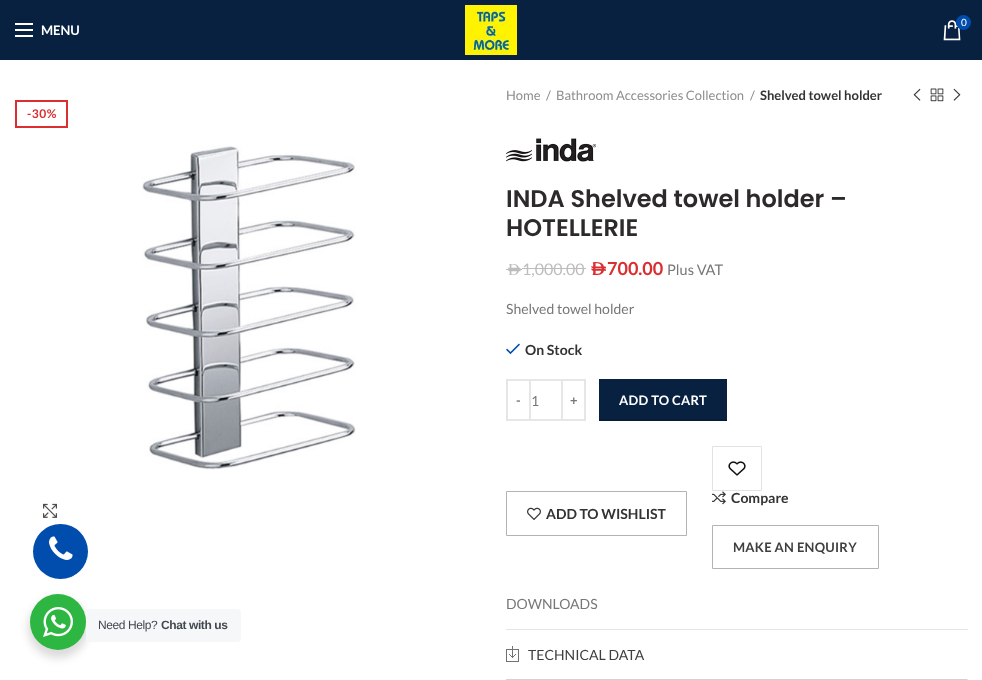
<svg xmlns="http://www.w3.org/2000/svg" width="982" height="680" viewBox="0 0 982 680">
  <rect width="100%" height="100%" fill="#fff"/>
  <path d="M0 0h982v60H0z" fill="#092141"/>
  <image x="465" y="5" width="52" height="50" href="img/1.png"/>
  <image x="943" y="20" width="18" height="21" href="img/2.png"/>
  <circle cx="963.5" cy="22.5" r="7.5" fill="#004dad"/>
  <path d="M15 29h18v2H15z" fill="#fff"/>
  <path d="M15 23h18v2H15z" fill="#fff"/>
  <path d="M15 35h18v2H15z" fill="#fff"/>
  <path d="M16 101h51v26H16z" fill="none" stroke="#da2e30" stroke-width="2"/>
  <image x="142" y="146" width="214" height="324" href="img/3.png"/>
  <image x="43" y="503" width="14" height="15" href="img/4.png"/>
  <image x="913" y="88" width="8" height="13" href="img/5.png"/>
  <image x="930" y="88" width="14" height="14" href="img/6.png"/>
  <image x="953" y="88" width="8" height="13" href="img/7.png"/>
  <image x="506" y="138" width="90" height="24" href="img/8.png"/>
  <path d="M506 269h16v1H506z" fill="#bdbdbd"/>
  <path d="M522 268h64v1H522z" fill="#bdbdbd"/>
  <image x="506" y="343" width="14" height="12" href="img/9.png"/>
  <path d="M507 380h23v40H507z" fill="none" stroke="#e6e6e6" stroke-width="2"/>
  <path d="M531 379h30v2H531z" fill="#e6e6e6"/>
  <path d="M531 419h30v2H531z" fill="#e6e6e6"/>
  <path d="M562 380h23v40H562z" fill="none" stroke="#e6e6e6" stroke-width="2"/>
  <path d="M599 379h128v40H599z" fill="#082141"/>
  <path d="M599 419h128v2H599z" fill="#071c37"/>
  <image x="728" y="461" width="18" height="15" href="img/10.png"/>
  <path d="M712.5 446.5h49v44H712.5z" fill="none" stroke="#e2e2e2"/>
  <image x="712" y="491" width="14" height="14" href="img/11.png"/>
  <path d="M506.5 491.5h180v44H506.5z" fill="none" stroke="#b4b4b4"/>
  <image x="527" y="507" width="14" height="13" href="img/12.png"/>
  <path d="M712.5 525.5h166v43H712.5z" fill="none" stroke="#b4b4b4"/>
  <path d="M506 629h462v1H506z" fill="#e6e6e6"/>
  <image x="506" y="646" width="13" height="16" href="img/13.png"/>
  <path d="M967 679h1v1H967z" fill="#e6e6e6"/>
  <path d="M506 679h461v1H506z" fill="#d2d2d2"/>
  <circle cx="60.5" cy="551.5" r="27.5" fill="#004dad"/>
  <image x="49" y="536" width="24" height="24" href="img/14.png"/>
  <rect x="28" y="598" width="60" height="60" rx="30" fill="#00000024" filter="blur(4px)"/>
  <circle cx="58" cy="622" r="28" fill="#2db742"/>
  <image x="43" y="607" width="30" height="30" href="img/15.png"/>
  <rect x="86" y="609" width="155" height="33" rx="4" fill="#f5f7f9"/>
  <text x="961" y="26" font-family="Lato" font-size="10" fill="#fff">0</text>
  <text x="41" y="35" font-family="Lato" font-size="13" font-weight="bold" fill="#fff">MENU</text>
  <text x="27" y="118" font-family="Lato" font-size="12" font-weight="bold" letter-spacing="0.5" fill="#da2e30">-30%</text>
  <g font-family="Lato" font-size="13" fill="#8e8e8e">
    <text x="506" y="100">Home</text>
    <text x="546" y="100">/</text>
    <text x="556" y="100">Bathroom Accessories Collection</text>
    <text x="750" y="100">/</text>
  </g>
  <text x="760" y="100" font-family="Lato" font-size="13" font-weight="bold" fill="#333">Shelved towel holder</text>
  <g font-family="Poppins" font-size="24" font-weight="600" fill="#2d2a2a">
    <text x="506" y="207">INDA Shelved towel holder –</text>
    <text x="506" y="236">HOTELLERIE</text>
  </g>
  <text x="506" y="275" font-family="'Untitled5'" font-size="16" fill="#bdbdbd">AED</text>
  <text x="522" y="275" font-family="Lato" font-size="16" fill="#bdbdbd">1,000.00</text>
  <text x="589" y="275" font-family="'Untitled5'" font-size="18" font-weight="bold" fill="#da2e30">AED</text>
  <text x="607" y="275" font-family="Lato" font-size="18" font-weight="bold" fill="#da2e30">700.00</text>
  <text x="667" y="275" font-family="Lato" font-size="14.5" fill="#777">Plus VAT</text>
  <text x="506" y="314" font-family="Lato" font-size="14" fill="#777">Shelved towel holder</text>
  <text x="525" y="355" font-family="Lato" font-size="14" font-weight="bold" fill="#333">On Stock</text>
  <text x="516" y="405" font-family="Lato" font-size="13" font-weight="bold" letter-spacing="0.25" fill="#777">-</text>
  <text x="531" y="406" font-family="Lato" font-size="14" fill="#777">1</text>
  <text x="570" y="405" font-family="Lato" font-size="13" font-weight="bold" letter-spacing="0.25" fill="#777">+</text>
  <text x="619" y="405" font-family="Lato" font-size="13" font-weight="bold" letter-spacing="0.25" fill="#fff">ADD TO CART</text>
  <g font-family="Lato" font-size="14" font-weight="bold" fill="#333">
    <text x="731" y="503">Compare</text>
    <text x="546" y="519">ADD TO WISHLIST</text>
  </g>
  <text x="733" y="552" font-family="Lato" font-size="13" font-weight="bold" letter-spacing="0.25" fill="#3f3f3f">MAKE AN ENQUIRY</text>
  <text x="506" y="609" font-family="Lato" font-size="14" fill="#777">DOWNLOADS</text>
  <text x="528" y="660" font-family="Lato" font-size="14" fill="#3f3f3f">TECHNICAL DATA</text>
  <text x="98" y="629" font-family="Liberation Sans" font-size="12" letter-spacing="-0.4" fill="#43474e">Need Help?</text>
  <text x="161" y="629" font-family="Liberation Sans" font-size="12" font-weight="bold" letter-spacing="-0.4" fill="#43474e">Chat with us</text>
</svg>
